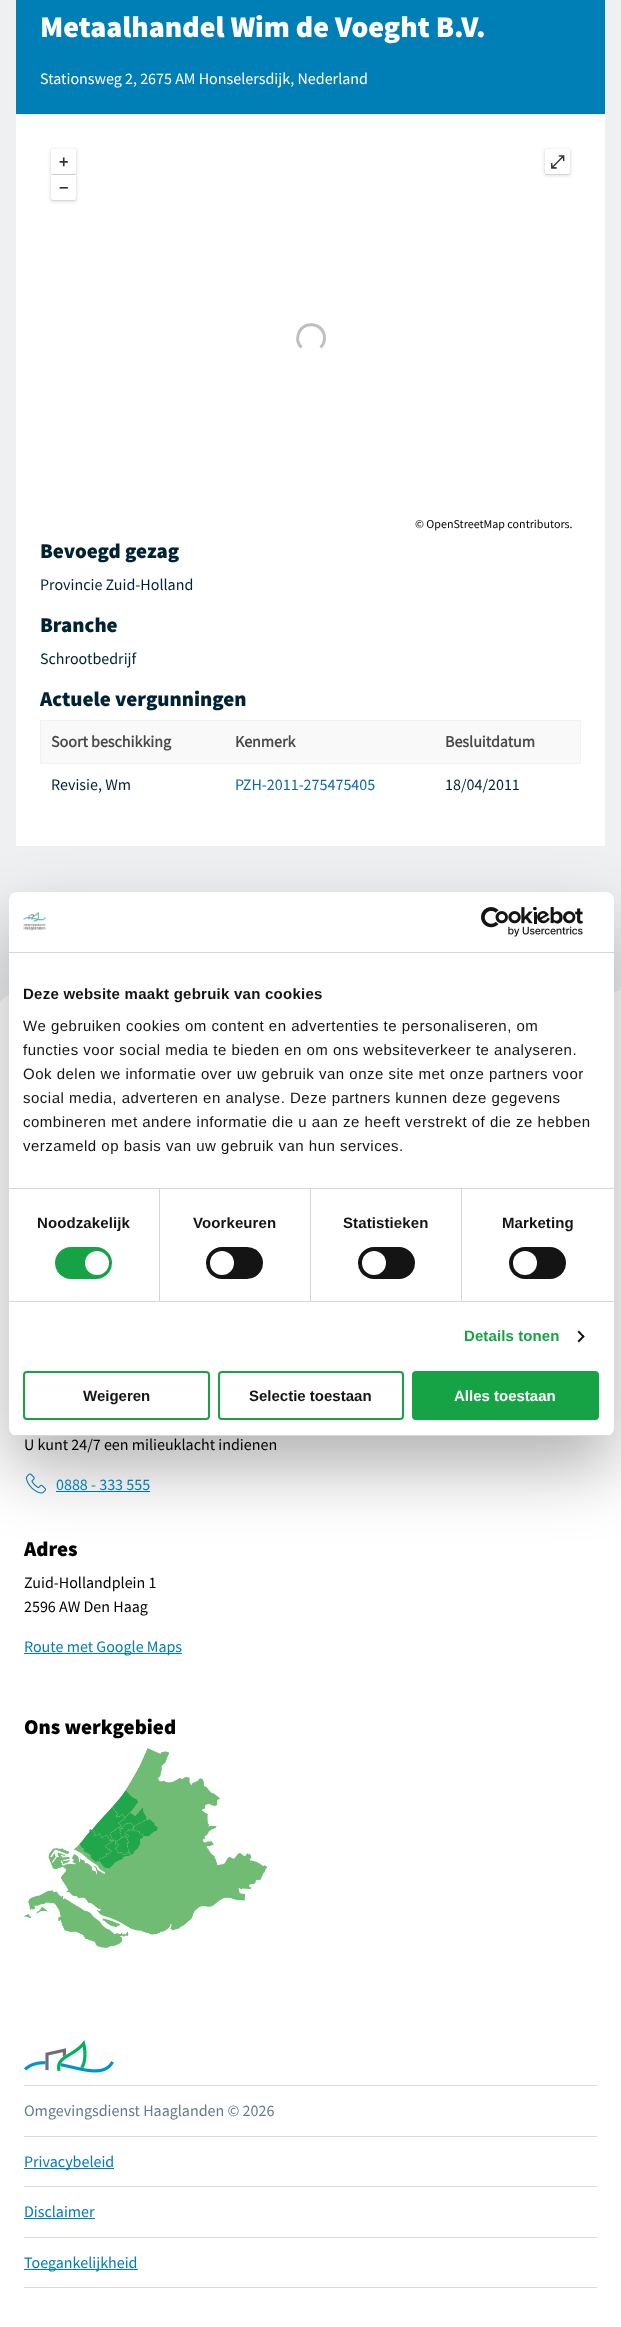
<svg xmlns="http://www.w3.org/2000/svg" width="621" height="2327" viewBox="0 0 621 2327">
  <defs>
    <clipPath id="clip1"><rect x="9" y="892" width="605" height="544" rx="8"/></clipPath>
  </defs>
  <rect width="100%" height="100%" fill="#eff0f2"/>
  <path d="M16 0h589v114H16z" fill="#007eb6"/>
  <path d="M16 114h589v732H16z" fill="#fff"/>
  <rect x="50" y="149" width="27" height="27" rx="3" fill="#42424229" filter="blur(1.5px)"/>
  <rect x="51" y="150" width="25" height="25" rx="2" fill="#42424214" filter="blur(0.5px)"/>
  <path d="M53 149H74C75 149 76 150 76 151V174H51V151C51 150 52 149 53 149Z" fill="#fff"/>
  <rect x="50" y="175" width="27" height="27" rx="3" fill="#42424229" filter="blur(1.5px)"/>
  <rect x="51" y="176" width="25" height="25" rx="2" fill="#42424214" filter="blur(0.5px)"/>
  <path d="M51 175H76V198C76 199 75 200 74 200H53C52 200 51 199 51 198Z" fill="#fff"/>
  <rect x="544" y="149" width="27" height="27" rx="3" fill="#42424229" filter="blur(1.5px)"/>
  <rect x="545" y="150" width="25" height="25" rx="2" fill="#42424214" filter="blur(0.5px)"/>
  <rect x="545" y="149" width="25" height="25" rx="2" fill="#fff"/>
  <path d="M301.5 347.5C298.5 344.5 297 339.5 298 335.5C301 319.5 324.5 322 324.5 338C324.5 341.5 323 345 320.5 347.5" fill="none" stroke="#bfbfbf" stroke-width="3"/>
  <path d="M41 721h539v42H41z" fill="#f9f9f9"/>
  <path d="M40 720h541v1H40z" fill="#f2f2f2"/>
  <path d="M580 720h1v44H580z" fill="#f2f2f2"/>
  <path d="M40 763h541v1H40z" fill="#f2f2f2"/>
  <path d="M40 720h1v44H40z" fill="#f2f2f2"/>
  <path d="M0 1008h621v1319H0z" fill="#fff"/>
  <path d="M282 971C112 937 23 978 0 1002V1008H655V966C611 1019 486 1011 282 971Z" fill="#fff"/>
  <image x="26" y="1473" width="20" height="21" href="img/3.png"/>
  <path d="M56 1491h94v1H56z" fill="#007eb6"/>
  <rect x="9" y="924" width="605" height="544" rx="8" fill="#0000004d" filter="blur(34px)"/>
  <rect x="9" y="892" width="605" height="544" rx="8" fill="#fff"/>
  <path d="M9 952h605v1H9z" fill="#d6d6d6"/>
  <image x="23" y="911" width="23" height="20" href="img/1.png"/>
  <image x="481" y="907" width="102" height="30" href="img/2.png"/>
  <path d="M9 1188h605v1H9z" fill="#d6d6d6"/>
  <path d="M9 1301h605v1H9z" fill="#d6d6d6"/>
  <path d="M159 1189h1v112H159z" fill="#d6d6d6"/>
  <rect x="55" y="1247" width="57" height="32" rx="16" fill="#16a345"/>
  <circle cx="97" cy="1263" r="12" fill="#fff"/>
  <path d="M310 1189h1v112H310z" fill="#d6d6d6"/>
  <rect x="206" y="1247" width="57" height="32" rx="16" fill="#141414"/>
  <circle cx="222" cy="1263" r="12" fill="#fff"/>
  <path d="M461 1189h1v112H461z" fill="#d6d6d6"/>
  <rect x="358" y="1247" width="57" height="32" rx="16" fill="#141414"/>
  <circle cx="374" cy="1263" r="12" fill="#fff"/>
  <rect x="509" y="1247" width="57" height="32" rx="16" fill="#141414"/>
  <circle cx="525" cy="1263" r="12" fill="#fff"/>
  <path d="M579 1330.5L584.5 1336.5L583.5 1338L577.5 1332Z" fill="#141414"/>
  <path d="M583.5 1335L584.5 1336.5L579 1342.5L577.5 1341Z" fill="#141414"/>
  <g clip-path="url(#clip1)">
    <path d="M9 1435h605v1H9z" fill="#d6d6d6"/>
  </g>
  <rect x="24" y="1372" width="185" height="47" rx="3" fill="none" stroke="#16a345" stroke-width="2"/>
  <rect x="219" y="1372" width="184" height="47" rx="3" fill="none" stroke="#16a345" stroke-width="2"/>
  <rect x="413" y="1372" width="185" height="47" rx="3" fill="#16a345" stroke="#16a345" stroke-width="2"/>
  <path d="M24 1653h158v1H24z" fill="#007eb6"/>
  <image x="24" y="1748" width="243" height="200" href="img/4.png"/>
  <path d="M24 2085h573v1H24z" fill="#d9d9d9"/>
  <image x="24" y="2040" width="90" height="33" href="img/5.png"/>
  <path d="M24 2136h573v1H24z" fill="#d9d9d9"/>
  <path d="M24 2186h573v1H24z" fill="#d9d9d9"/>
  <path d="M24 2168h90v1H24z" fill="#007eb6"/>
  <path d="M24 2237h573v1H24z" fill="#d9d9d9"/>
  <path d="M24 2218h71v1H24z" fill="#007eb6"/>
  <path d="M24 2287h573v1H24z" fill="#d9d9d9"/>
  <path d="M24 2269h114v1H24z" fill="#007eb6"/>
  <text x="40" y="37" font-family="Source Sans Pro" font-size="30" font-weight="900" fill="#fff">Metaalhandel Wim de Voeght B.V.</text>
  <text x="40" y="84" font-family="Source Sans Pro" font-size="16" fill="#fff">Stationsweg 2, 2675 AM Honselersdijk, Nederland</text>
  <g font-family="Source Sans Pro" font-size="18" font-weight="bold" fill="#333">
    <text x="59" y="168">+</text>
    <text x="59" y="194">−</text>
  </g>
  <text x="550" y="168" font-family="FreeSerif" font-size="18" font-weight="bold" fill="#333">⤢</text>
  <text x="415" y="528" font-family="Source Sans Pro" font-size="12" fill="#000">© OpenStreetMap contributors.</text>
  <text x="40" y="558" font-family="Source Sans Pro" font-size="21" font-weight="900" fill="#002333">Bevoegd gezag</text>
  <text x="40" y="590" font-family="Source Sans Pro" font-size="16" fill="#002333">Provincie Zuid-Holland</text>
  <text x="40" y="632" font-family="Source Sans Pro" font-size="21" font-weight="900" fill="#002333">Branche</text>
  <text x="40" y="664" font-family="Source Sans Pro" font-size="16" fill="#002333">Schrootbedrijf</text>
  <text x="40" y="706" font-family="Source Sans Pro" font-size="21" font-weight="900" fill="#002333">Actuele vergunningen</text>
  <g font-family="Source Sans Pro" font-size="16" font-weight="bold" fill="#48494b">
    <text x="51" y="747">Soort beschikking</text>
    <text x="235" y="747">Kenmerk</text>
    <text x="445" y="747">Besluitdatum</text>
  </g>
  <text x="51" y="790" font-family="Source Sans Pro" font-size="16" fill="#002333">Revisie, Wm</text>
  <text x="235" y="790" font-family="Source Sans Pro" font-size="16" fill="#0d67a9">PZH-2011-275475405</text>
  <text x="445" y="790" font-family="Source Sans Pro" font-size="16" fill="#002333">18/04/2011</text>
  <text x="23" y="999" font-family="Liberation Sans" font-size="15" font-weight="bold" letter-spacing="0.25" fill="#141414">Deze website maakt gebruik van cookies</text>
  <g font-family="Liberation Sans" font-size="15" letter-spacing="0.5" fill="#141414">
    <text x="23" y="1031">We gebruiken cookies om content en advertenties te personaliseren, om</text>
    <text x="23" y="1055">functies voor social media te bieden en om ons websiteverkeer te analyseren.</text>
    <text x="23" y="1079">Ook delen we informatie over uw gebruik van onze site met onze partners voor</text>
    <text x="23" y="1103">social media, adverteren en analyse. Deze partners kunnen deze gegevens</text>
    <text x="23" y="1127">combineren met andere informatie die u aan ze heeft verstrekt of die ze hebben</text>
    <text x="23" y="1151">verzameld op basis van uw gebruik van hun services.</text>
  </g>
  <g font-family="Liberation Sans" font-size="15" font-weight="bold" letter-spacing="0.1" fill="#141414">
    <text x="37" y="1228">Noodzakelijk</text>
    <text x="193" y="1228">Voorkeuren</text>
    <text x="343" y="1228">Statistieken</text>
    <text x="502" y="1228">Marketing</text>
  </g>
  <text x="464" y="1341" font-family="Liberation Sans" font-size="15" font-weight="bold" letter-spacing="0.1" fill="#16a345">Details tonen</text>
  <g font-family="Liberation Sans" font-size="15" font-weight="bold" fill="#141414">
    <text x="83" y="1401">Weigeren</text>
    <text x="249" y="1401">Selectie toestaan</text>
  </g>
  <text x="454" y="1401" font-family="Liberation Sans" font-size="15" font-weight="bold" fill="#fff">Alles toestaan</text>
  <text x="24" y="1450" font-family="Source Sans Pro" font-size="16" fill="#000">U kunt 24/7 een milieuklacht indienen</text>
  <text x="56" y="1490" font-family="Source Sans Pro" font-size="16" fill="#007eb6">0888 - 333 555</text>
  <text x="24" y="1556" font-family="Source Sans Pro" font-size="21" font-weight="900" fill="#000">Adres</text>
  <g font-family="Source Sans Pro" font-size="16" fill="#000">
    <text x="24" y="1588">Zuid-Hollandplein 1</text>
    <text x="24" y="1612">2596 AW Den Haag</text>
  </g>
  <text x="24" y="1652" font-family="Source Sans Pro" font-size="16" fill="#007eb6">Route met Google Maps</text>
  <text x="24" y="1734" font-family="Source Sans Pro" font-size="21" font-weight="900" fill="#000">Ons werkgebied</text>
  <text x="24" y="2116" font-family="Source Sans Pro" font-size="16" fill="#667b85">Omgevingsdienst Haaglanden © 2026</text>
  <g font-family="Source Sans Pro" font-size="16" fill="#007eb6">
    <text x="24" y="2167">Privacybeleid</text>
    <text x="24" y="2217">Disclaimer</text>
    <text x="24" y="2268">Toegankelijkheid</text>
  </g>
</svg>
